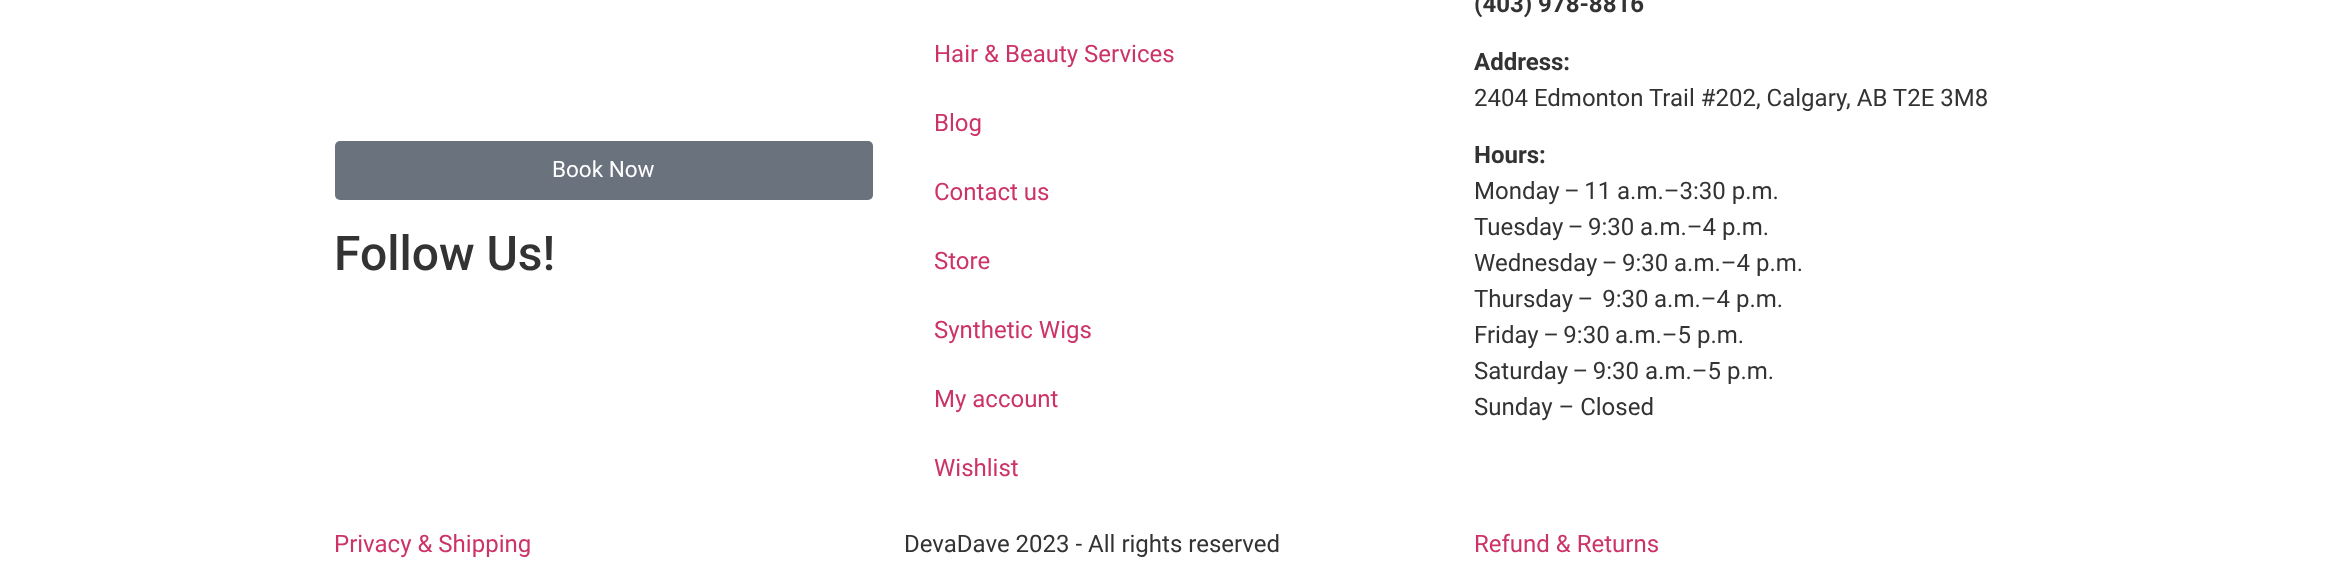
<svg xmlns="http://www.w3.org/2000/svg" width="2347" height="570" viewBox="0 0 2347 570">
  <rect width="100%" height="100%" fill="#fff"/>
  <rect x="335" y="141" width="538" height="59" rx="5" fill="#69727d"/>
  <text x="552" y="177" font-family="Roboto" font-size="22.5" fill="#fff">Book Now</text>
  <text x="334" y="270" font-family="Roboto" font-size="48" font-weight="500" fill="#333">Follow Us!</text>
  <g font-family="Roboto" font-size="24" fill="#c36">
    <text x="934" y="62">Hair &amp; Beauty Services</text>
    <text x="934" y="131">Blog</text>
    <text x="934" y="200">Contact us</text>
    <text x="934" y="269">Store</text>
    <text x="934" y="338">Synthetic Wigs</text>
    <text x="934" y="407">My account</text>
    <text x="934" y="476">Wishlist</text>
  </g>
  <g font-family="Roboto" font-size="24" font-weight="bold" fill="#333">
    <text x="1474" y="12">(403) 978-8816</text>
    <text x="1474" y="70">Address:</text>
  </g>
  <text x="1474" y="106" font-family="Roboto" font-size="24" fill="#333">2404 Edmonton Trail #202, Calgary, AB T2E 3M8</text>
  <text x="1474" y="163" font-family="Roboto" font-size="24" font-weight="bold" fill="#333">Hours:</text>
  <g font-family="Roboto" font-size="24" fill="#333">
    <text x="1474" y="199" word-spacing="-1.5">Monday – 11</text>
    <text x="1617" y="199">a.m.–3:30 p.m.</text>
    <text x="1474" y="235" word-spacing="-1.5">Tuesday – 9:30</text>
    <text x="1640" y="235">a.m.–4 p.m.</text>
    <text x="1474" y="271" word-spacing="-1.5">Wednesday – 9:30</text>
    <text x="1674" y="271">a.m.–4 p.m.</text>
    <text x="1474" y="307" word-spacing="-1.5" xml:space="preserve">Thursday –  9:30</text>
    <text x="1654" y="307">a.m.–4 p.m.</text>
    <text x="1474" y="343" word-spacing="-1.5">Friday – 9:30</text>
    <text x="1615" y="343">a.m.–5 p.m.</text>
    <text x="1474" y="379" word-spacing="-1.5">Saturday – 9:30</text>
    <text x="1645" y="379">a.m.–5 p.m.</text>
    <text x="1474" y="415">Sunday – Closed</text>
  </g>
  <text x="334" y="552" font-family="Roboto" font-size="24" fill="#c36">Privacy &amp; Shipping</text>
  <text x="904" y="552" font-family="Roboto" font-size="24" fill="#333">DevaDave 2023 - All rights reserved</text>
  <text x="1474" y="552" font-family="Roboto" font-size="24" fill="#c36">Refund &amp; Returns</text>
</svg>
